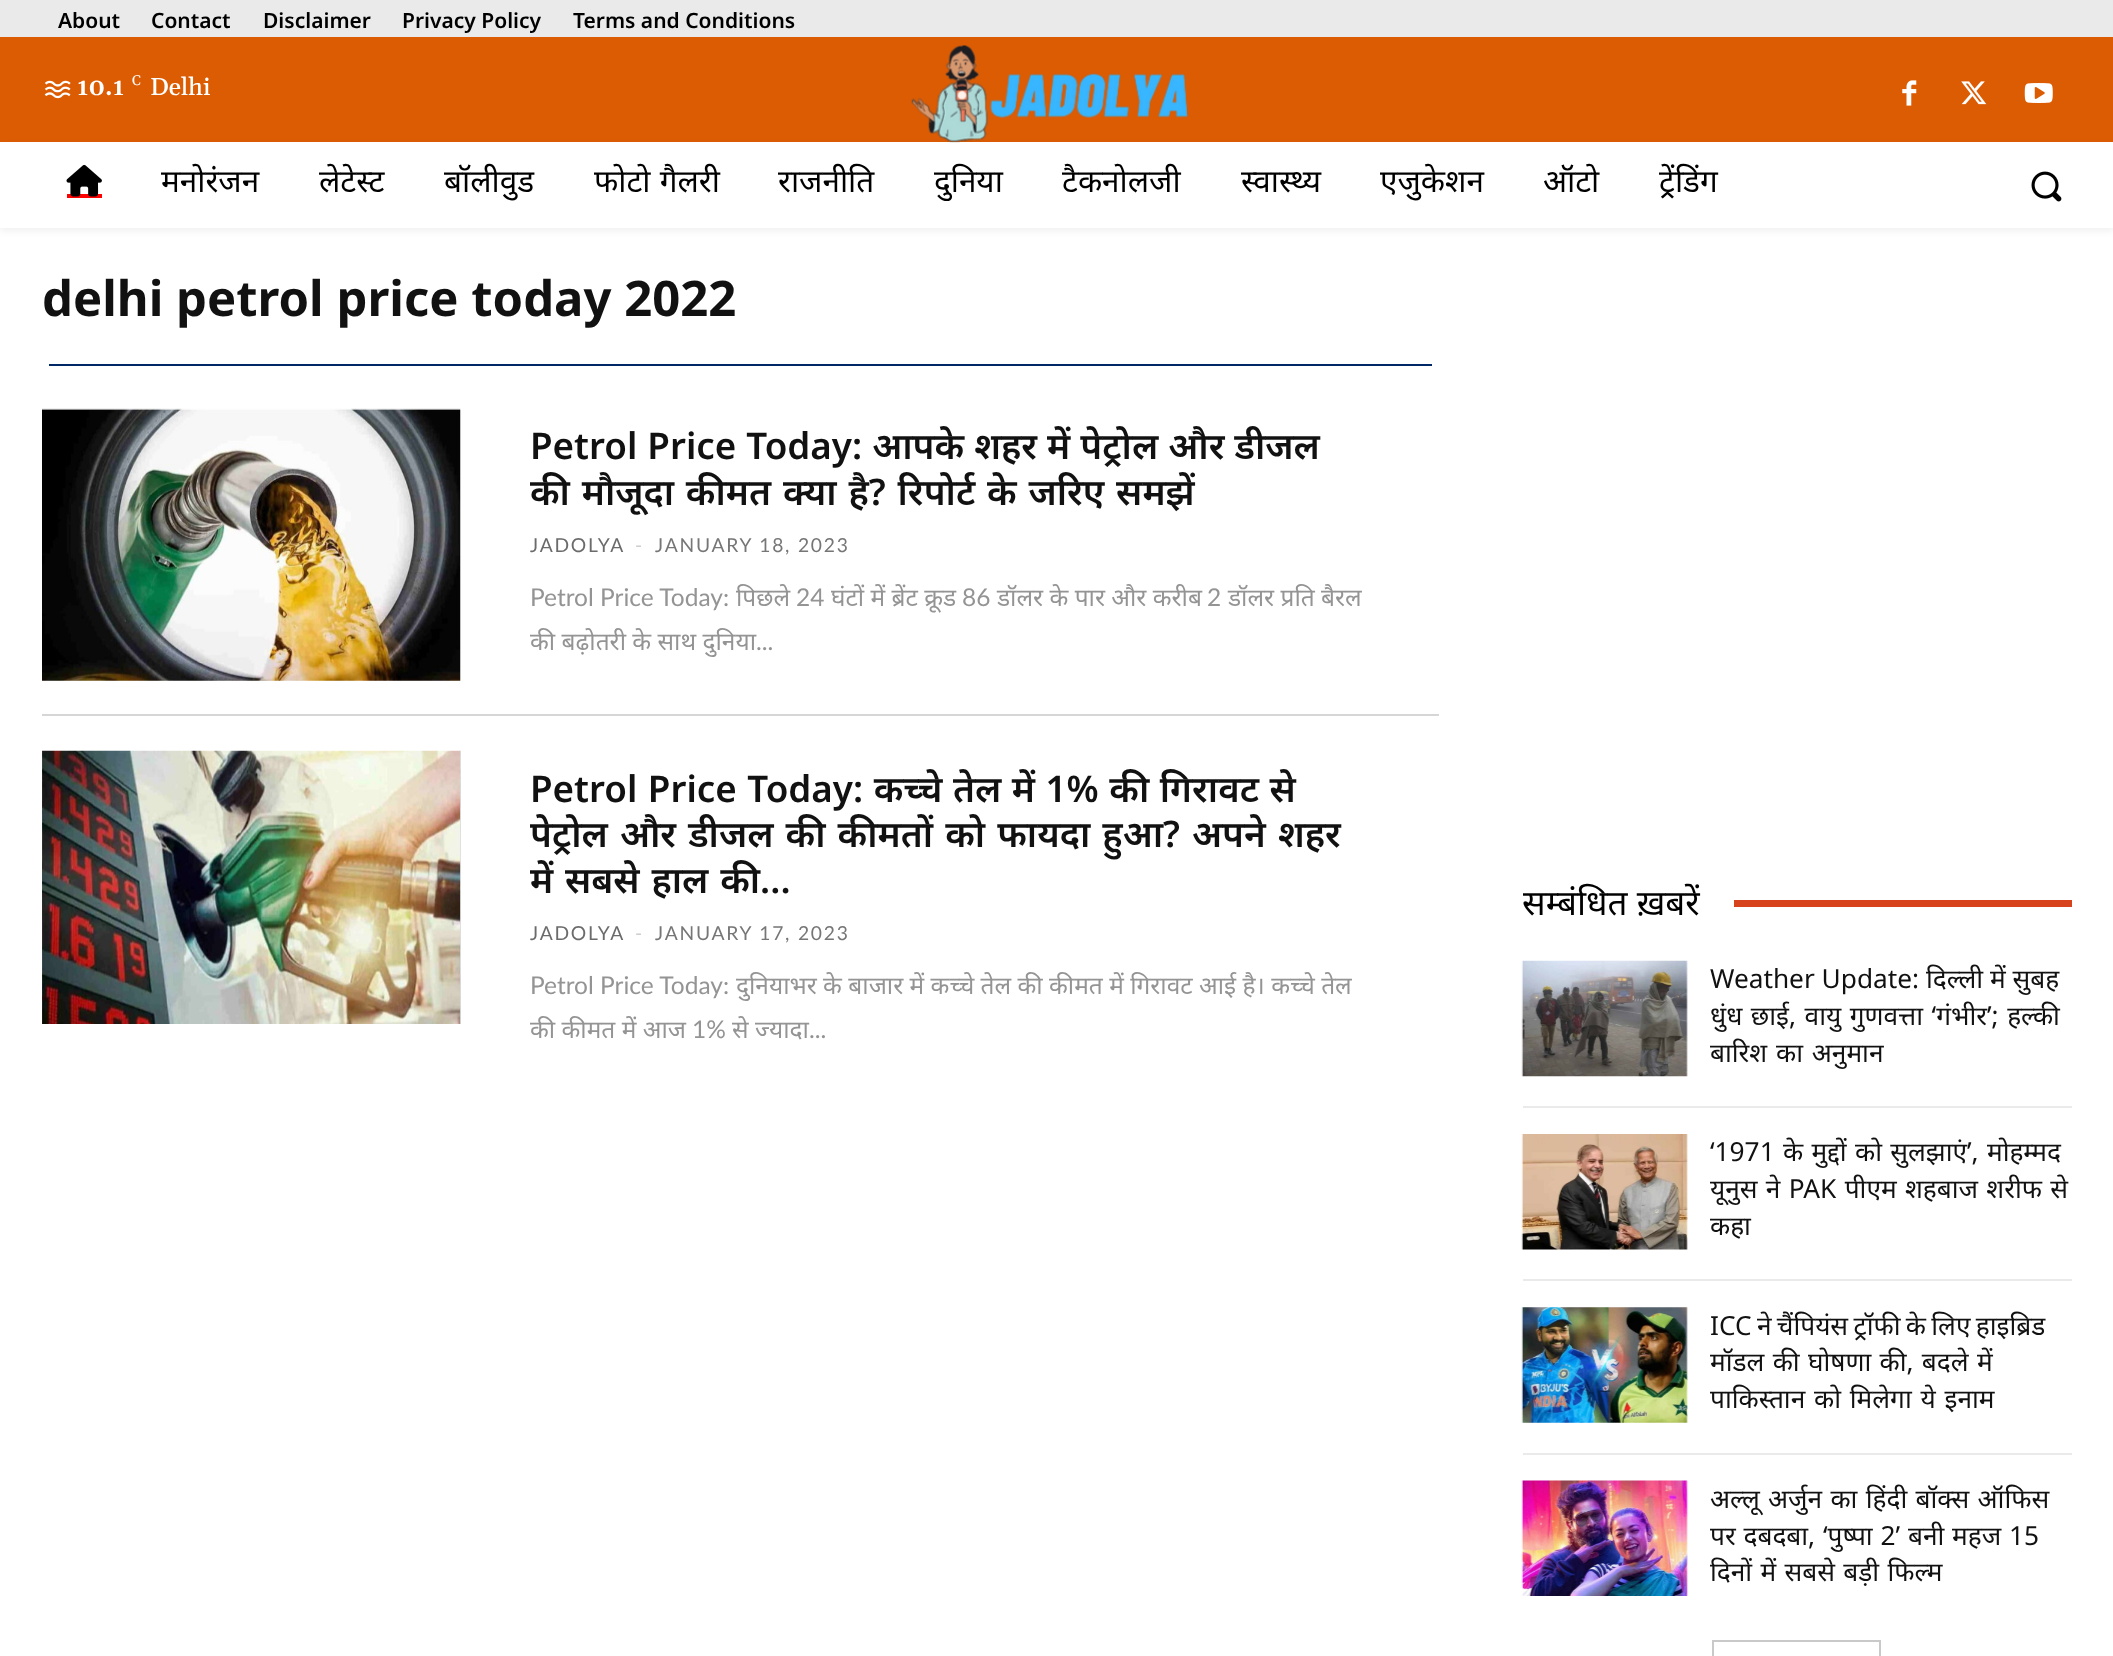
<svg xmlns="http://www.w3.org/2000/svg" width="2113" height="1656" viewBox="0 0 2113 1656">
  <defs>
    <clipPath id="clip1"><path d="M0 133H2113V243H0ZM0 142H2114V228H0Z" clip-rule="evenodd"/></clipPath>
    <clipPath id="clip2"><path d="M1523 879h549v50H1523z"/></clipPath>
  </defs>
  <rect width="100%" height="100%" fill="#fff"/>
  <path d="M0 0h2113v37H0z" fill="#eaeaea"/>
  <path d="M0 37h2113v105H0z" fill="#dc5c04"/>
  <image x="44" y="80" width="27" height="19" href="img/1.png"/>
  <image x="911" y="45" width="277" height="98" href="img/2.png"/>
  <image x="1902" y="80" width="15" height="26" href="img/3.png"/>
  <image x="1961" y="81" width="26" height="24" href="img/4.png"/>
  <image x="2024" y="83" width="29" height="20" href="img/5.png"/>
  <g clip-path="url(#clip1)">
    <path d="M0 145h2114v86H0z" fill="#0000000f" filter="blur(3.5px)"/>
  </g>
  <path d="M67 194h35v4H67z" fill="#f00"/>
  <image x="66" y="164" width="36" height="33" href="img/6.png"/>
  <image x="2031" y="171" width="31" height="31" href="img/7.png"/>
  <path d="M49 364h1383v2H49z" fill="#002866"/>
  <image x="42" y="408" width="419" height="273" href="img/8.png"/>
  <path d="M42 714h1397v2H42z" fill="#d6d6d6"/>
  <image x="42" y="750" width="419" height="274" href="img/9.png"/>
  <path d="M1734 900h338v7H1734z" fill="#d6431d"/>
  <image x="1521" y="960" width="167" height="117" href="img/10.png"/>
  <path d="M1523 1106h549v2H1523z" fill="#eaeaea"/>
  <image x="1521" y="1134" width="167" height="116" href="img/11.png"/>
  <path d="M1523 1279h549v2H1523z" fill="#eaeaea"/>
  <image x="1521" y="1307" width="167" height="116" href="img/12.png"/>
  <path d="M1523 1453h549v2H1523z" fill="#eaeaea"/>
  <image x="1521" y="1480" width="167" height="116" href="img/13.png"/>
  <path d="M1713 1641h167v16H1713z" fill="none" stroke="#c9c9c9" stroke-width="2"/>
  <g font-family="Noto Sans" font-size="21" font-weight="600" fill="#000">
    <text x="58" y="28">About</text>
    <text x="151" y="28">Contact</text>
    <text x="263" y="28">Disclaimer</text>
    <text x="402" y="28">Privacy Policy</text>
    <text x="573" y="28">Terms and Conditions</text>
  </g>
  <text x="77" y="95" font-family="Gelasio" font-size="24.5" font-weight="600" fill="#fff">10.1</text>
  <text x="132" y="85" font-family="Gelasio" font-size="14" fill="#fff">C</text>
  <text x="150" y="95" font-family="Gelasio" font-size="24.5" font-weight="500" fill="#fff">Delhi</text>
  <g font-family="Noto Sans" font-size="31.5" fill="#000">
    <text x="161" y="192">मनोरंजन</text>
    <text x="319" y="192">लेटेस्ट</text>
    <text x="444" y="192">बॉलीवुड</text>
    <text x="594" y="192" word-spacing="1">फोटो गैलरी</text>
    <text x="778" y="192">राजनीति</text>
    <text x="934" y="192">दुनिया</text>
    <text x="1062" y="192">टैकनोलजी</text>
    <text x="1241" y="192">स्वास्थ्य</text>
    <text x="1380" y="192">एजुकेशन</text>
    <text x="1543" y="192">ऑटो</text>
    <text x="1659" y="192">ट्रेंडिंग</text>
  </g>
  <text x="42" y="316" font-family="Noto Sans" font-size="49" font-weight="bold" fill="#111">delhi petrol price today 2022</text>
  <g font-family="Noto Sans" font-size="36.75" font-weight="600" fill="#111">
    <text x="530" y="459" word-spacing="0.5">Petrol Price Today: आपके शहर में पेट्रोल और डीजल</text>
    <text x="530" y="505" word-spacing="2.25">की मौजूदा कीमत क्या है? रिपोर्ट के जरिए समझें</text>
  </g>
  <text x="530" y="552" font-family="Lato" font-size="19.25" letter-spacing="1.75" fill="#6b6b6b">JADOLYA</text>
  <text x="635" y="552" font-family="Lato" font-size="19.25" letter-spacing="1.75" fill="#ccc">-</text>
  <text x="655" y="552" font-family="Lato" font-size="19.25" letter-spacing="1.75" fill="#767676">JANUARY 18, 2023</text>
  <text x="530" y="606" font-family="Lato" font-size="24.5" fill="#949494">Petrol Price Today:</text>
  <text x="736" y="606" font-family="Noto Sans" font-size="24.5" fill="#949494">पिछले</text>
  <text x="796" y="606" font-family="Lato" font-size="24.5" fill="#949494">24</text>
  <text x="831" y="606" font-family="Noto Sans" font-size="24.5" fill="#949494">घंटों में ब्रेंट क्रूड</text>
  <text x="962" y="606" font-family="Lato" font-size="24.5" fill="#949494">86</text>
  <text x="997" y="606" font-family="Noto Sans" font-size="24.5" fill="#949494">डॉलर के पार और करीब</text>
  <text x="1207" y="606" font-family="Lato" font-size="24.5" fill="#949494">2</text>
  <g font-family="Noto Sans" font-size="24.5" fill="#949494">
    <text x="1228" y="606">डॉलर प्रति बैरल</text>
    <text x="530" y="650">की बढ़ोतरी के साथ दुनिया</text>
  </g>
  <text x="756" y="650" font-family="Lato" font-size="24.5" fill="#949494">...</text>
  <g font-family="Noto Sans" font-size="36.75" font-weight="600" fill="#111">
    <text x="530" y="802" word-spacing="1">Petrol Price Today: कच्चे तेल में 1% की गिरावट से</text>
    <text x="530" y="847" word-spacing="2.5">पेट्रोल और डीजल की कीमतों को फायदा हुआ? अपने शहर</text>
    <text x="530" y="893" word-spacing="2.25">में सबसे हाल की...</text>
  </g>
  <text x="530" y="940" font-family="Lato" font-size="19.25" letter-spacing="1.75" fill="#6b6b6b">JADOLYA</text>
  <text x="635" y="940" font-family="Lato" font-size="19.25" letter-spacing="1.75" fill="#ccc">-</text>
  <text x="655" y="940" font-family="Lato" font-size="19.25" letter-spacing="1.75" fill="#767676">JANUARY 17, 2023</text>
  <text x="530" y="994" font-family="Lato" font-size="24.5" fill="#949494">Petrol Price Today:</text>
  <g font-family="Noto Sans" font-size="24.5" fill="#949494">
    <text x="736" y="994">दुनियाभर के बाजार में कच्चे तेल की कीमत में गिरावट आई है। कच्चे तेल</text>
    <text x="530" y="1038">की कीमत में आज</text>
  </g>
  <text x="692" y="1038" font-family="Lato" font-size="24.5" fill="#949494">1%</text>
  <text x="732" y="1038" font-family="Noto Sans" font-size="24.5" fill="#949494">से ज्यादा</text>
  <text x="809" y="1038" font-family="Lato" font-size="24.5" fill="#949494">...</text>
  <g clip-path="url(#clip2)">
    <text x="1522" y="915" font-family="Noto Sans" font-size="35" fill="#000">सम्बंधित ख़बरें</text>
  </g>
  <g font-family="Noto Sans" font-size="26.25" fill="#111">
    <text x="1710" y="988">Weather Update: दिल्ली में सुबह</text>
    <text x="1710" y="1025" word-spacing="1.75">धुंध छाई, वायु गुणवत्ता ‘गंभीर’; हल्की</text>
    <text x="1710" y="1062" word-spacing="2">बारिश का अनुमान</text>
    <text x="1710" y="1161" word-spacing="1.5">‘1971 के मुद्दों को सुलझाएं’, मोहम्मद</text>
    <text x="1710" y="1198" word-spacing="1.5">यूनुस ने PAK पीएम शहबाज शरीफ से</text>
    <text x="1710" y="1235">कहा</text>
    <text x="1710" y="1335" word-spacing="-1.5">ICC ने चैंपियंस ट्रॉफी के लिए हाइब्रिड</text>
    <text x="1710" y="1371" word-spacing="1.5">मॉडल की घोषणा की, बदले में</text>
    <text x="1710" y="1408" word-spacing="2">पाकिस्तान को मिलेगा ये इनाम</text>
    <text x="1710" y="1508" word-spacing="1.5">अल्लू अर्जुन का हिंदी बॉक्स ऑफिस</text>
    <text x="1710" y="1545" word-spacing="1">पर दबदबा, ‘पुष्पा 2’ बनी महज 15</text>
    <text x="1710" y="1581" word-spacing="1.5">दिनों में सबसे बड़ी फिल्म</text>
  </g>
</svg>
